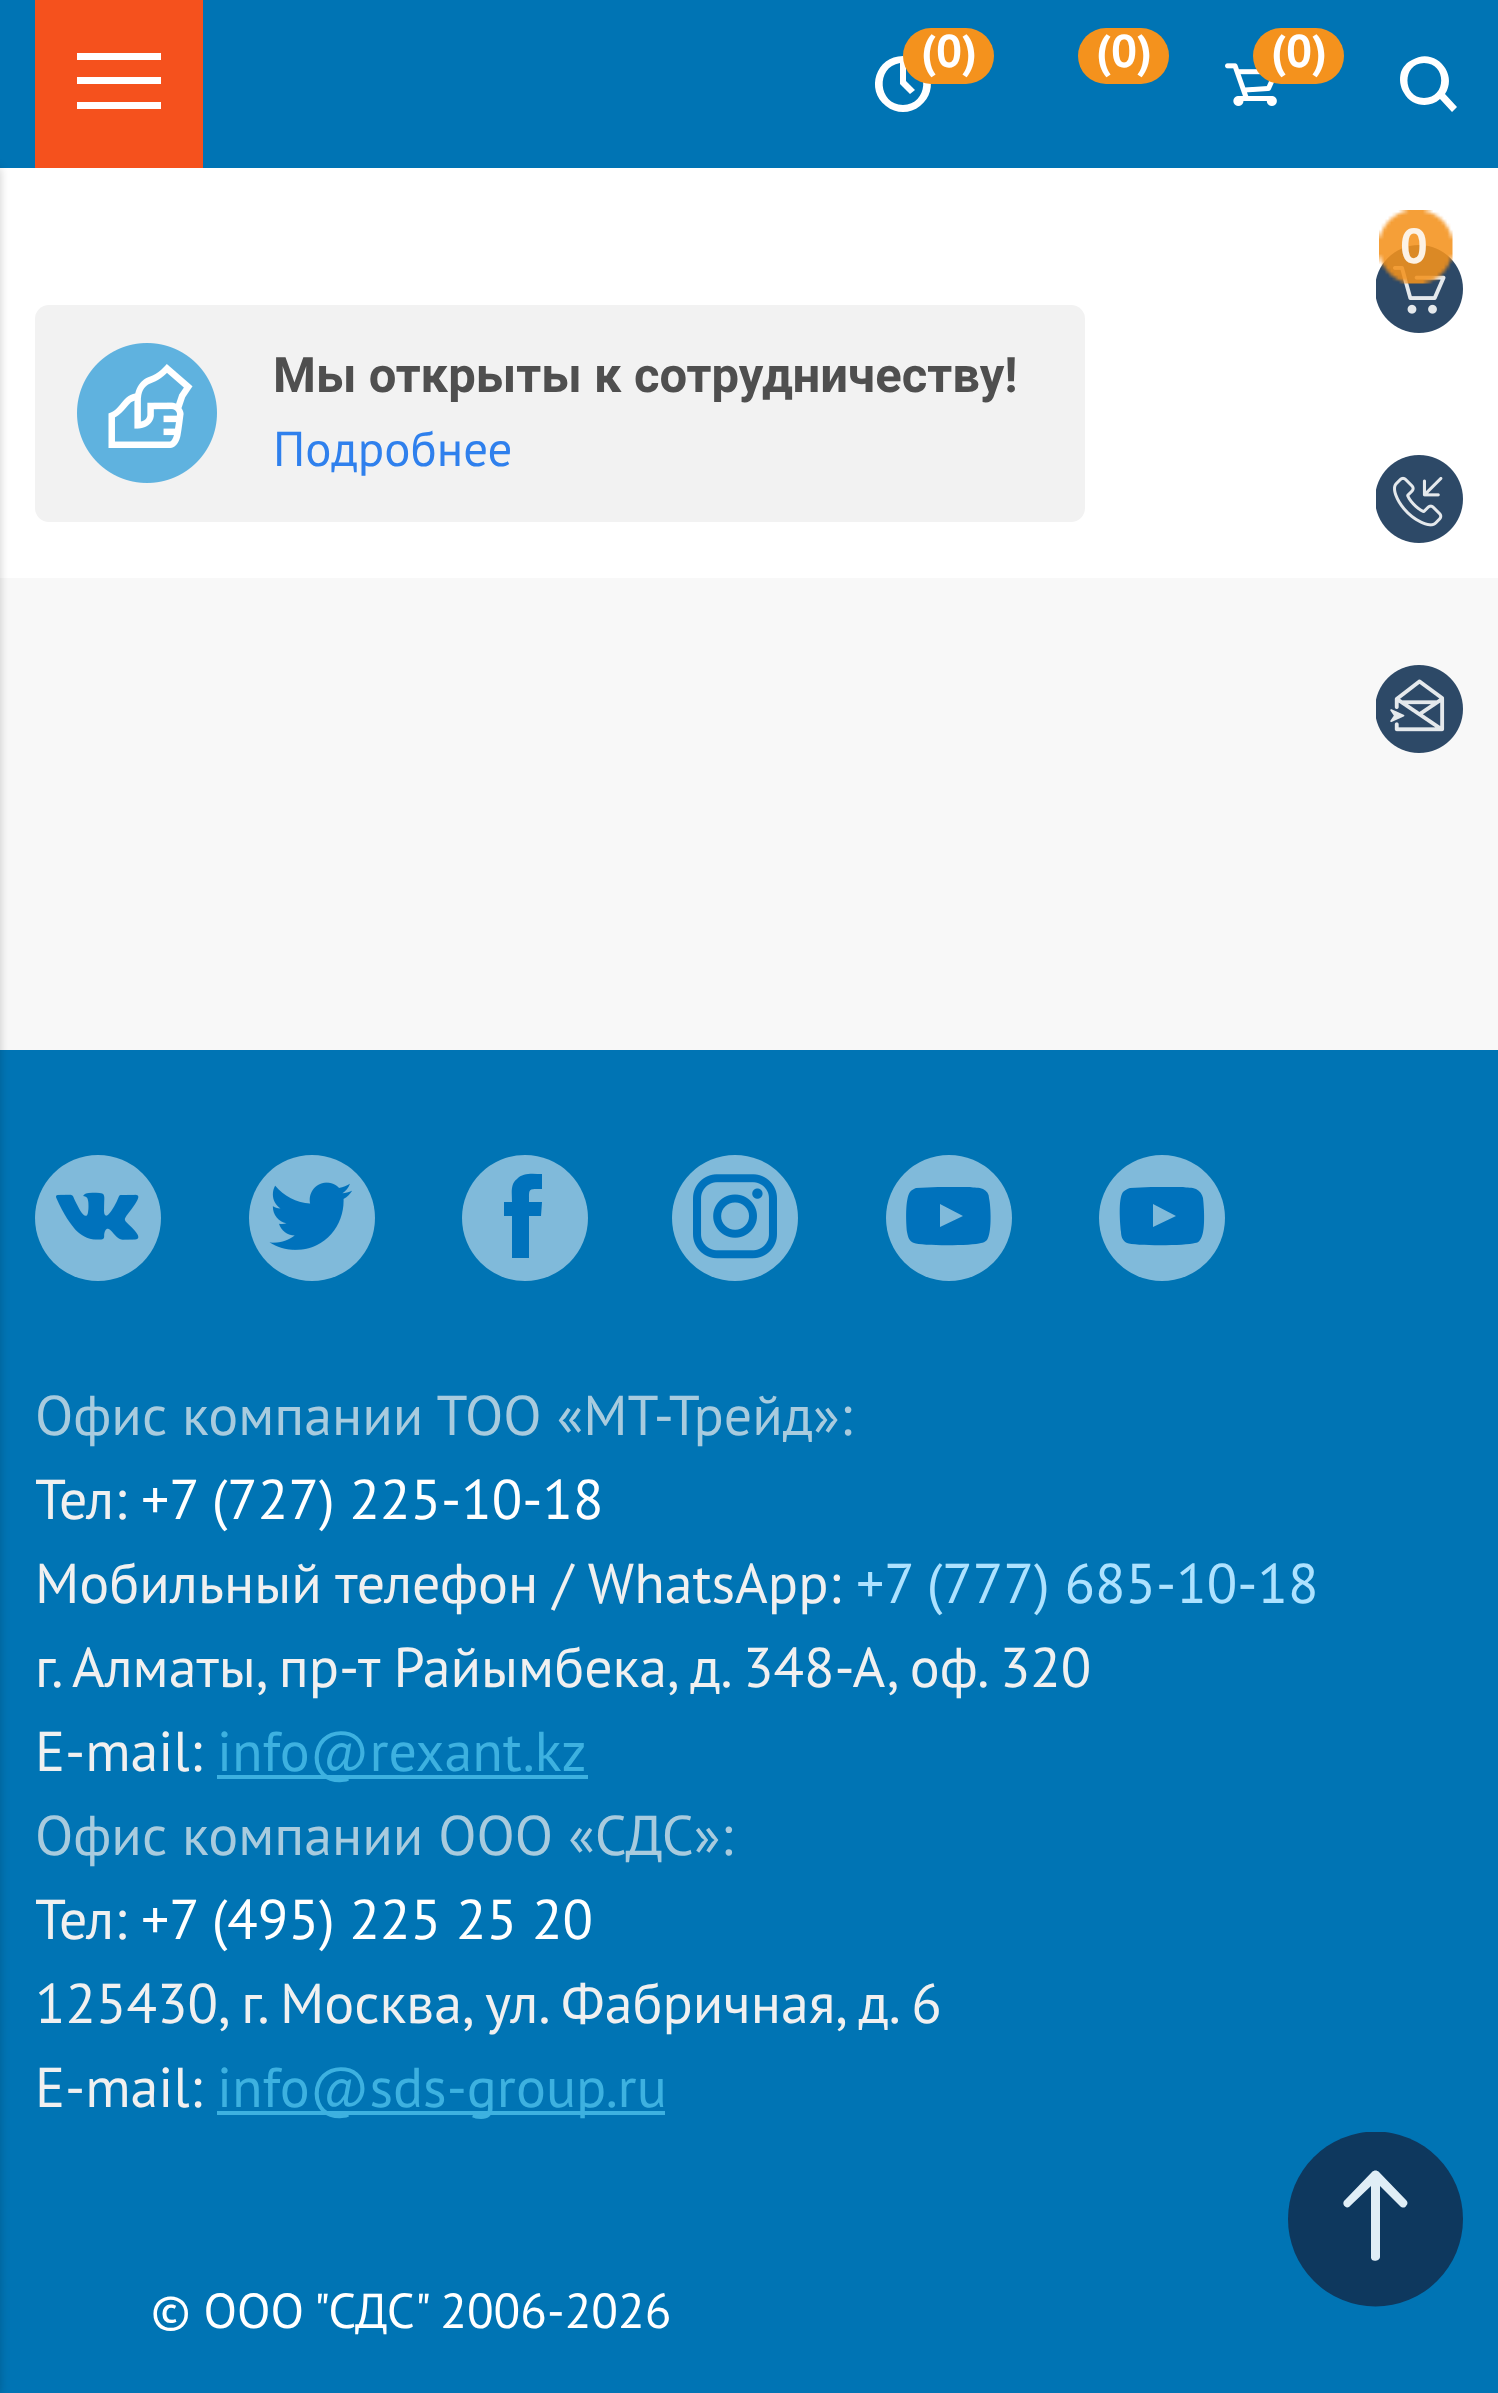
<svg xmlns="http://www.w3.org/2000/svg" width="1498" height="2393" viewBox="0 0 1498 2393">
  <defs>
    <clipPath id="clip1"><path d="M1288 2132h175v175H1288z"/></clipPath>
  </defs>
  <rect width="100%" height="100%" fill="#f8f8f8"/>
  <path d="M0 0h1498v168H0z" fill="#0074b4"/>
  <path d="M35 0h168v168H35z" fill="#f5511d"/>
  <path d="M77 53h84v7H77z" fill="#fff"/>
  <path d="M77 77h84v7H77z" fill="#fff"/>
  <path d="M77 102h84v7H77z" fill="#fff"/>
  <path d="M0 168h1498v410H0z" fill="#fff"/>
  <path d="M0 1050h1498v1343H0z" fill="#0074b4"/>
  <path d="M-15 168h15v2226H-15z" fill="#00000033" filter="blur(5px)"/>
  <path d="M903 56C876 56 865 90 886 106C891 110 897 112 903 112C909 112 915 110 920 106C941 90 930 56 903 56ZM903 105C878 105 875 67 900 63V84L910 94L915 90L906 81V63C931 67 928 105 903 105Z" fill="#fff"/>
  <rect x="903" y="28" width="91" height="56" rx="28" fill="#f4921d"/>
  <rect x="1078" y="28" width="91" height="56" rx="28" fill="#f4921d"/>
  <image x="1225" y="63" width="52" height="43" href="img/1.png"/>
  <rect x="1253" y="28" width="91" height="56" rx="28" fill="#f4921d"/>
  <path d="M1457 107L1445 94C1459 73 1434 46 1412 60C1407 62 1403 67 1401 72C1399 79 1400 87 1404 93C1411 106 1429 109 1440 99L1452 112ZM1424 98C1402 98 1402 63 1424 63C1447 63 1447 98 1424 98Z" fill="#fff"/>
  <image x="1376" y="245" width="87" height="88" href="img/3.png"/>
  <image x="1379" y="210" width="74" height="74" href="img/2.png"/>
  <rect x="35" y="305" width="1050" height="217" rx="14" fill="#f2f2f2"/>
  <image x="77" y="343" width="140" height="140" href="img/4.png"/>
  <image x="1376" y="455" width="87" height="88" href="img/5.png"/>
  <image x="1376" y="665" width="87" height="88" href="img/6.png"/>
  <path d="M217 1775h371v4H217z" fill="#3db1e0"/>
  <path d="M217 2111h448v4H217z" fill="#3db1e0"/>
  <circle cx="98" cy="1218" r="63" fill="#80bada"/>
  <image x="56" y="1192" width="83" height="48" href="img/7.png"/>
  <circle cx="312" cy="1218" r="63" fill="#80bada"/>
  <image x="269" y="1182" width="83" height="68" href="img/8.png"/>
  <circle cx="525" cy="1218" r="63" fill="#80bada"/>
  <path d="M517 1179C523 1172 534 1174 542 1174V1189C528 1189 529 1188 529 1202H542L541 1216H529V1258H512V1216H504V1202H512C512 1194 510 1184 517 1179Z" fill="#0072bc"/>
  <circle cx="735" cy="1218" r="63" fill="#80bada"/>
  <image x="693" y="1174" width="84" height="85" href="img/9.png"/>
  <circle cx="949" cy="1218" r="63" fill="#80bada"/>
  <path d="M989 1198C989 1194 987 1191 983 1189C979 1187 974 1188 970 1187H938L916 1188C914 1189 911 1190 910 1192C905 1199 906 1223 907 1232C908 1237 909 1241 914 1243C921 1246 973 1246 981 1243C983 1243 985 1242 987 1240C992 1233 991 1207 989 1198ZM940 1227V1204L963 1216Z" fill="#0072bc"/>
  <circle cx="1162" cy="1218" r="63" fill="#80bada"/>
  <path d="M1203 1198C1202 1194 1200 1191 1196 1189C1192 1187 1187 1188 1183 1187H1151L1130 1188C1127 1189 1125 1190 1123 1192C1118 1199 1120 1223 1121 1232C1121 1237 1123 1241 1127 1243C1134 1246 1186 1246 1195 1243C1197 1243 1199 1242 1200 1240C1206 1233 1204 1207 1203 1198ZM1153 1227V1204L1176 1216Z" fill="#0072bc"/>
  <g clip-path="url(#clip1)">
    <circle cx="1375.5" cy="2219" r="87.5" fill="#0e385e"/>
  </g>
  <path d="M1345 2200L1372 2172C1374 2170 1377 2170 1379 2172L1406 2200C1408 2202 1408 2204 1406 2206C1405 2208 1402 2208 1400 2206L1380 2186V2257C1380 2260 1375 2262 1372 2260L1371 2258V2186L1349 2207C1345 2209 1341 2203 1345 2200Z" fill="#e0eef6" fill-rule="evenodd"/>
  <g font-family="PT Sans" font-size="46" font-weight="bold" fill="#fff">
    <text x="921" y="67">(0)</text>
    <text x="1096" y="67">(0)</text>
    <text x="1271" y="67">(0)</text>
  </g>
  <text x="1400" y="263" font-family="PT Sans" font-size="49" font-weight="bold" fill="#fcf2e6">0</text>
  <text x="273" y="392" font-family="Roboto" font-size="49" font-weight="bold" fill="#4f4f4f">Мы открыты к сотрудничеству!</text>
  <text x="273" y="466" font-family="PT Sans" font-size="49" fill="#2f80ed">Подробнее</text>
  <text x="35" y="1435" font-family="PT Sans" font-size="56" fill="#a8cbde">Офис компании ТОО «МТ-Трейд»:</text>
  <text x="35" y="1519" font-family="PT Sans" font-size="56" fill="#f0f0f0">Тел:</text>
  <text x="141" y="1519" font-family="PT Sans" font-size="56" fill="#fff">+7 (727) 225-10-18</text>
  <text x="35" y="1603" font-family="PT Sans" font-size="56" fill="#f0f0f0">Мобильный телефон / WhatsApp:</text>
  <text x="856" y="1603" font-family="PT Sans" font-size="56" fill="#ade2ff">+7 (777) 685-10-18</text>
  <g font-family="PT Sans" font-size="56" fill="#f0f0f0">
    <text x="35" y="1687">г. Алматы, пр-т Райымбека, д. 348-А, оф. 320</text>
    <text x="35" y="1771">E-mail:</text>
  </g>
  <text x="217" y="1771" font-family="PT Sans" font-size="56" fill="#3db1e0">info@rexant.kz</text>
  <text x="35" y="1855" font-family="PT Sans" font-size="56" fill="#a8cbde">Офис компании ООО «СДС»:</text>
  <text x="35" y="1939" font-family="PT Sans" font-size="56" fill="#f0f0f0">Тел:</text>
  <text x="141" y="1939" font-family="PT Sans" font-size="56" fill="#fff">+7 (495) 225 25 20</text>
  <g font-family="PT Sans" font-size="56" fill="#f0f0f0">
    <text x="35" y="2023">125430, г. Москва, ул. Фабричная, д. 6</text>
    <text x="35" y="2107">E-mail:</text>
  </g>
  <text x="217" y="2107" font-family="PT Sans" font-size="56" fill="#3db1e0">info@sds-group.ru</text>
  <text x="151" y="2328" font-family="PT Sans" font-size="49" fill="#fff">© ООО "СДС" 2006-2026</text>
</svg>
